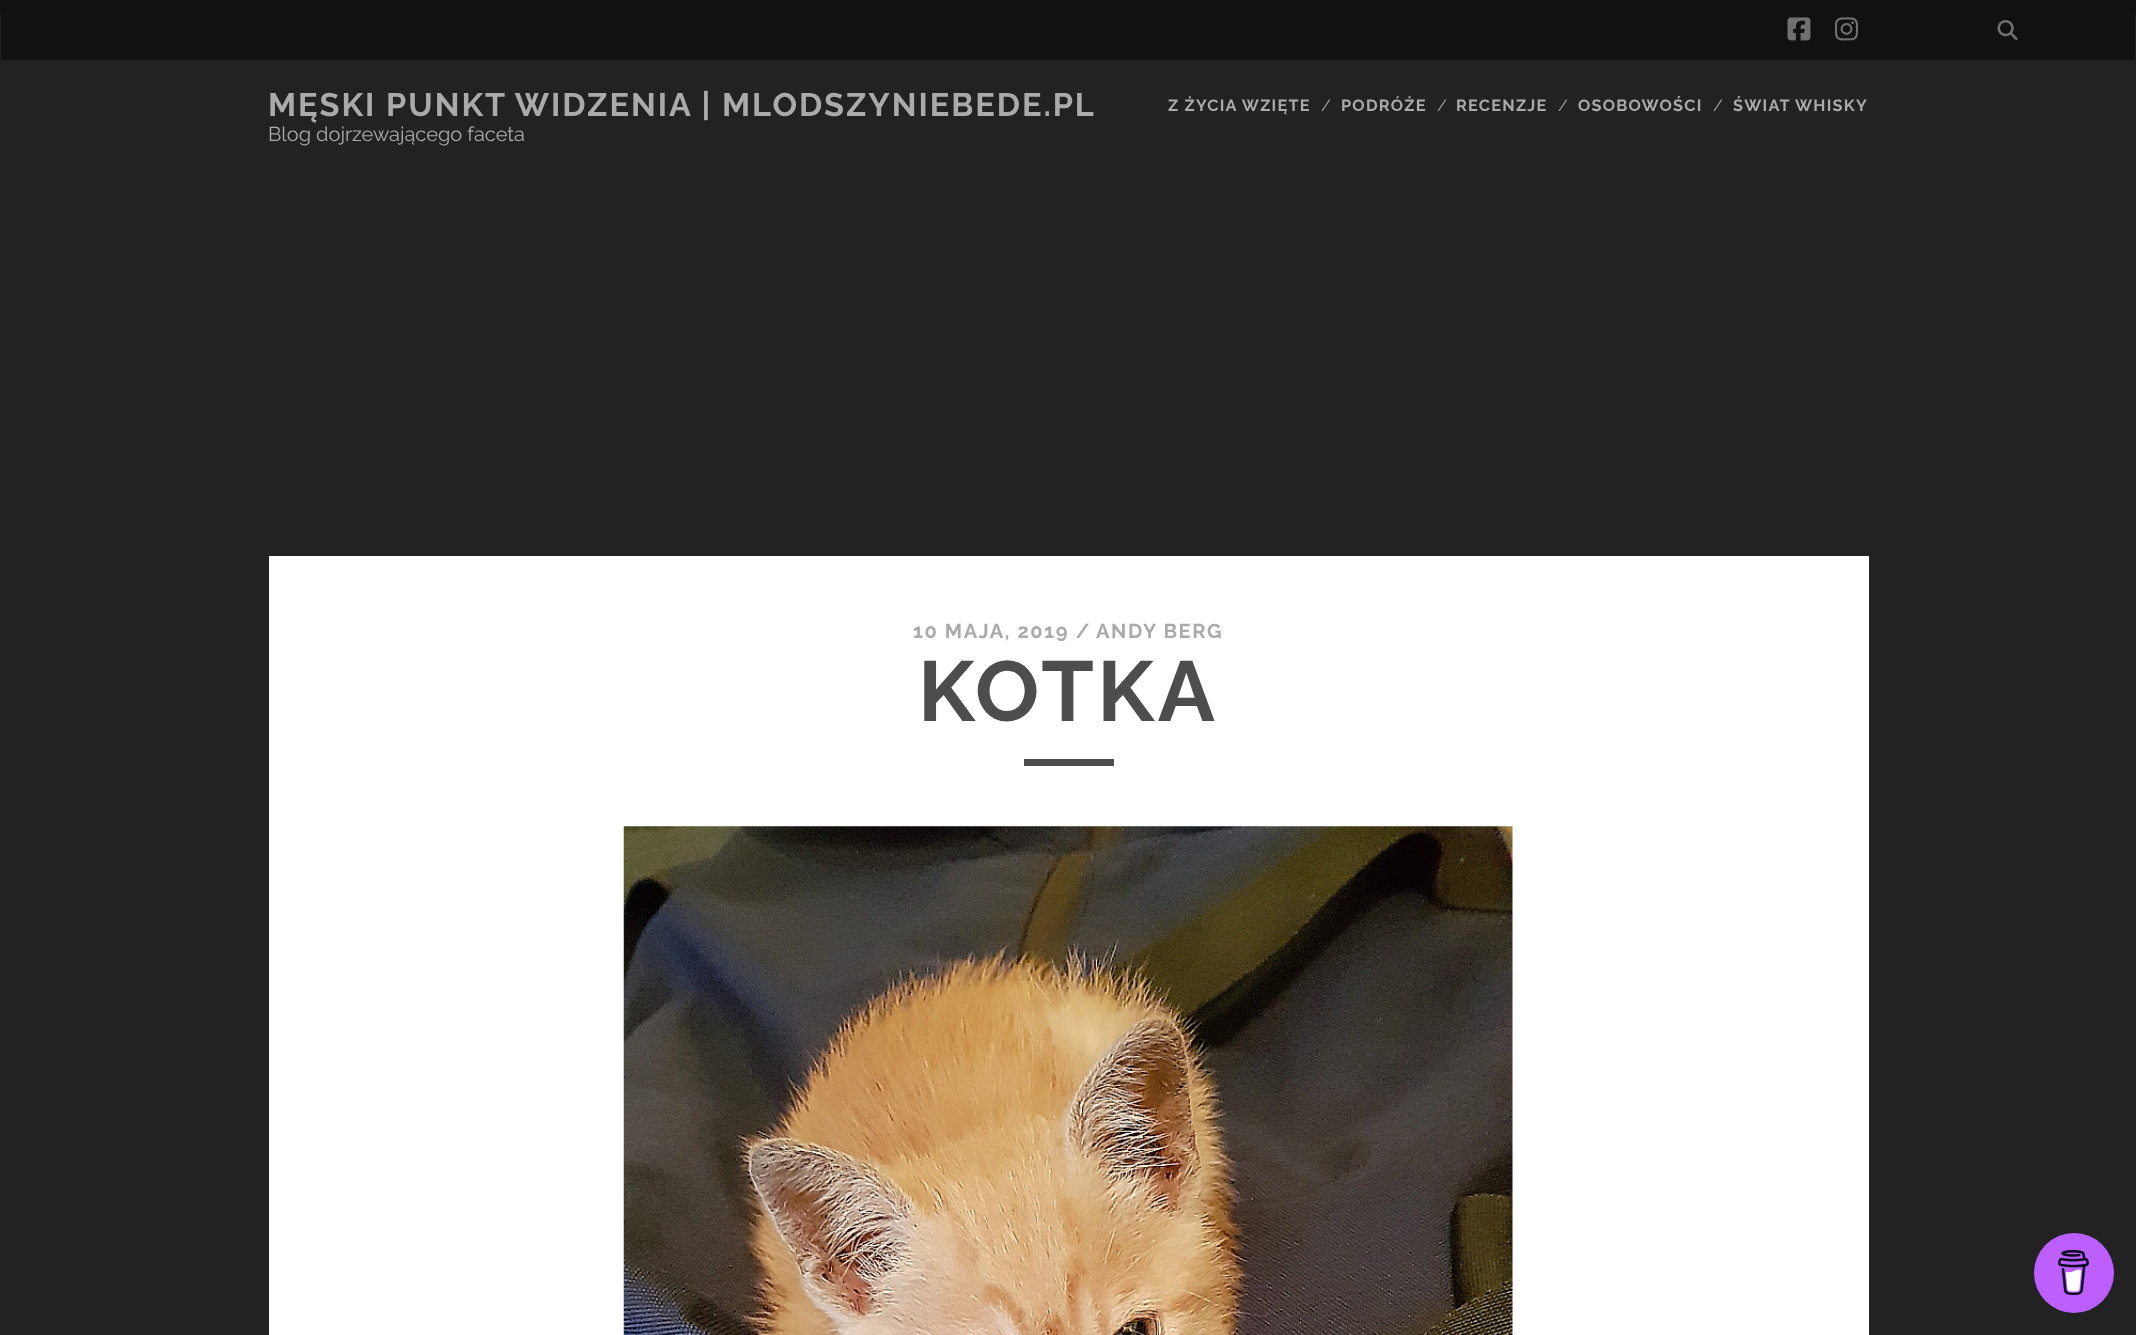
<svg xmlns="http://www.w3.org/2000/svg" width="2136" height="1335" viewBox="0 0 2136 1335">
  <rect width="100%" height="100%" fill="#222"/>
  <path d="M0 0h2136v15H0z" fill="#111"/>
  <path d="M1 15h2134v45H1z" fill="#111"/>
  <image x="1787" y="17" width="24" height="24" href="img/1.png"/>
  <image x="1835" y="17" width="23" height="24" href="img/2.png"/>
  <image x="1997" y="20" width="21" height="20" href="img/3.png"/>
  <path d="M269 556h1600v779H269z" fill="#fff"/>
  <path d="M1024 759h90v7H1024z" fill="#4d4d4d"/>
  <image x="623" y="826" width="890" height="509" href="img/4.png"/>
  <circle cx="2074" cy="1273" r="40" fill="#bd5fff"/>
  <image x="2058" y="1250" width="31" height="45" href="img/5.png"/>
  <text x="268" y="116" font-family="Raleway" font-size="32.5" font-weight="bold" letter-spacing="1.95" fill="#aaa">MĘSKI PUNKT WIDZENIA | MLODSZYNIEBEDE.PL</text>
  <text x="1168" y="111" font-family="Raleway" font-size="16.25" font-weight="bold" letter-spacing="1.25" fill="#aaa">Z ŻYCIA WZIĘTE</text>
  <text x="1321" y="111" font-family="Raleway" font-size="16.25" fill="#aaa">/</text>
  <text x="1341" y="111" font-family="Raleway" font-size="16.25" font-weight="bold" letter-spacing="1.25" fill="#aaa">PODRÓŻE</text>
  <text x="1437" y="111" font-family="Raleway" font-size="16.25" fill="#aaa">/</text>
  <text x="1456" y="111" font-family="Raleway" font-size="16.25" font-weight="bold" letter-spacing="1.25" fill="#aaa">RECENZJE</text>
  <text x="1558" y="111" font-family="Raleway" font-size="16.25" fill="#aaa">/</text>
  <text x="1578" y="111" font-family="Raleway" font-size="16.25" font-weight="bold" letter-spacing="1.25" fill="#aaa">OSOBOWOŚCI</text>
  <text x="1713" y="111" font-family="Raleway" font-size="16.25" fill="#aaa">/</text>
  <text x="1733" y="111" font-family="Raleway" font-size="16.25" font-weight="bold" letter-spacing="1.25" fill="#aaa">ŚWIAT WHISKY</text>
  <text x="268" y="141" font-family="Raleway" font-size="20" fill="#aaa">Blog dojrzewającego faceta</text>
  <g font-family="Raleway" font-size="20" font-weight="bold" letter-spacing="1.6" fill="#aaa">
    <text x="913" y="638">10 MAJA, 2019 /</text>
    <text x="1096" y="638">ANDY BERG</text>
  </g>
  <text x="918" y="721" font-family="Raleway" font-size="85" font-weight="bold" letter-spacing="3.5" fill="#4d4d4d">KOTKA</text>
</svg>
